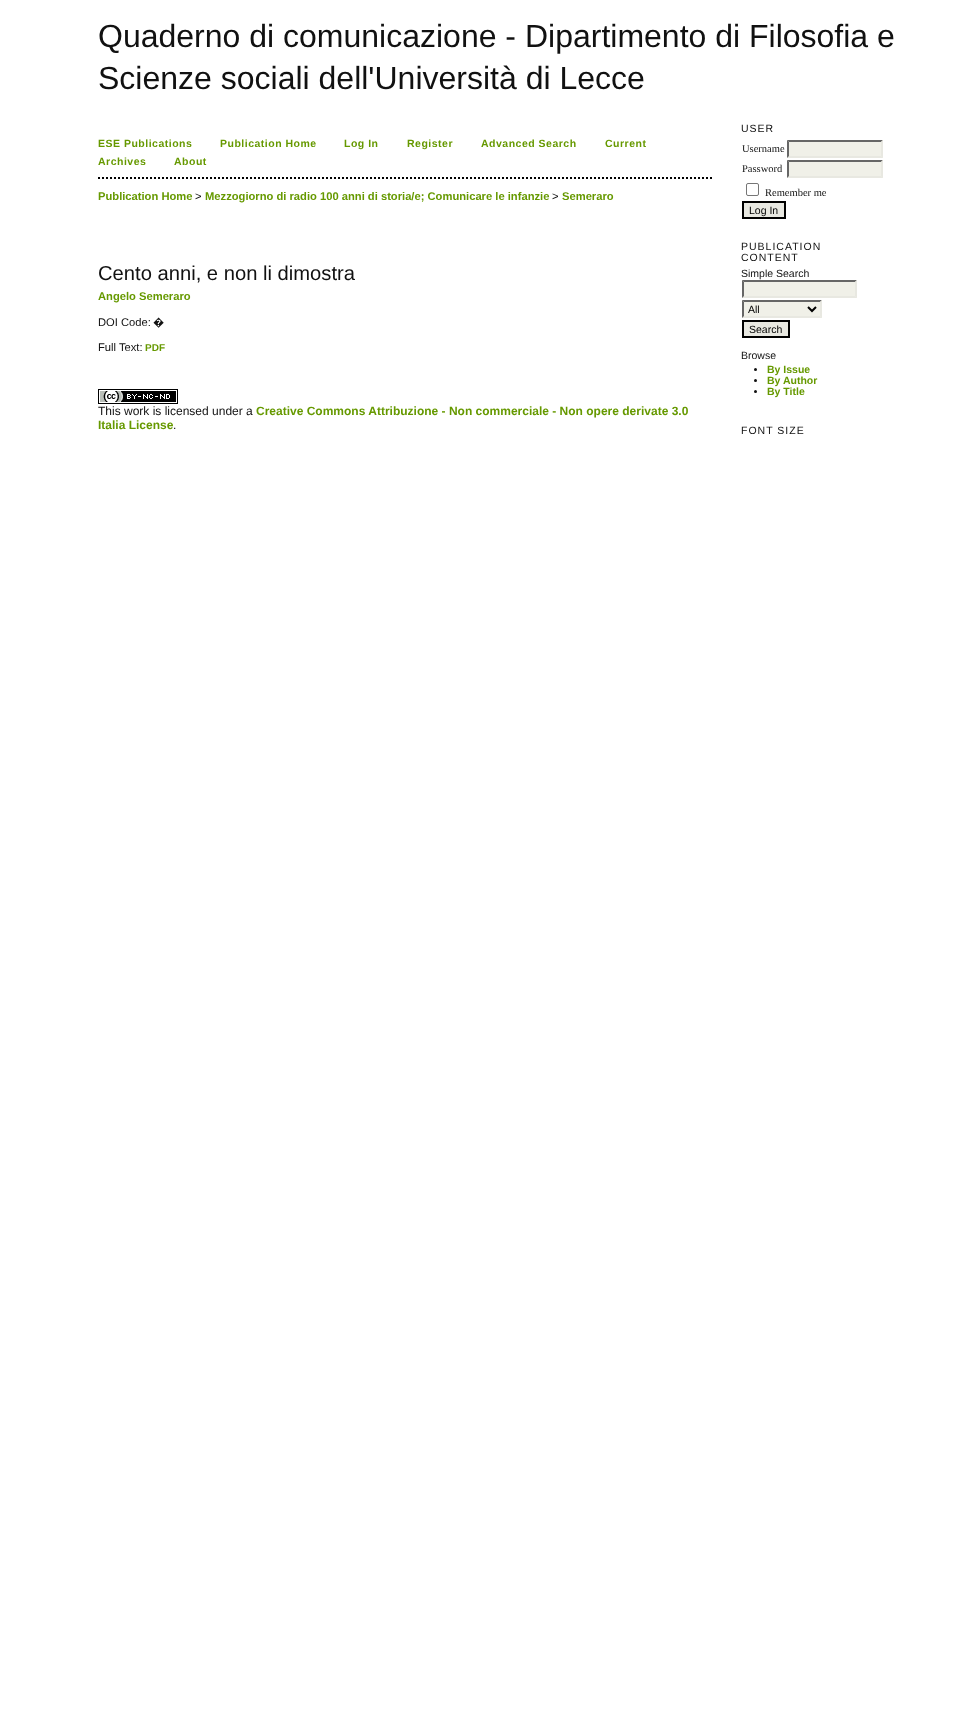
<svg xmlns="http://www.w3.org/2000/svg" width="975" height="1730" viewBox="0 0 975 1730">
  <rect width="100%" height="100%" fill="#fff"/>
  <path d="M98 178H712" fill="none" stroke="#000" stroke-width="2" stroke-dasharray="2 2"/>
  <image x="98" y="389" width="80" height="15" href="img/1.png"/>
  <path d="M787 140h96v18H787z" fill="#f0f0e8"/>
  <path d="M787 140H883L881 142H789Z" fill="#666"/>
  <path d="M883 140V158L881 156V142Z" fill="#e8e8e1"/>
  <path d="M883 158H787L789 156H881Z" fill="#e8e8e1"/>
  <path d="M787 158V140L789 142V156Z" fill="#666"/>
  <path d="M787 160h96v18H787z" fill="#f0f0e8"/>
  <path d="M787 160H883L881 162H789Z" fill="#666"/>
  <path d="M883 160V178L881 176V162Z" fill="#e8e8e1"/>
  <path d="M883 178H787L789 176H881Z" fill="#e8e8e1"/>
  <path d="M787 178V160L789 162V176Z" fill="#666"/>
  <rect x="746.5" y="183.5" width="12" height="12" rx="1.5" fill="none" stroke="#767676"/>
  <path d="M743 202h42v16H743z" fill="#e8e8e1" stroke="#000" stroke-width="2"/>
  <path d="M742 280h115v18H742z" fill="#f0f0e8"/>
  <path d="M742 280H857L855 282H744Z" fill="#666"/>
  <path d="M857 280V298L855 296V282Z" fill="#e8e8e1"/>
  <path d="M857 298H742L744 296H855Z" fill="#e8e8e1"/>
  <path d="M742 298V280L744 282V296Z" fill="#666"/>
  <path d="M742 300h80v18H742z" fill="#f0f0e8"/>
  <path d="M742 300H822L820 302H744Z" fill="#666"/>
  <path d="M822 300V318L820 316V302Z" fill="#e8e8e1"/>
  <path d="M822 318H742L744 316H820Z" fill="#e8e8e1"/>
  <path d="M742 318V300L744 302V316Z" fill="#666"/>
  <path d="M808 307L812 311L816 307" fill="none" stroke="#000" stroke-width="2"/>
  <path d="M743 321h46v16H743z" fill="#e8e8e1" stroke="#000" stroke-width="2"/>
  <circle cx="755.5" cy="369.5" r="1.5" fill="#111"/>
  <circle cx="755.5" cy="380.5" r="1.5" fill="#111"/>
  <circle cx="755.5" cy="391.5" r="1.5" fill="#111"/>
  <g font-family="Liberation Sans" font-size="32" fill="#111">
    <text x="98" y="47">Quaderno di comunicazione - Dipartimento di Filosofia e</text>
    <text x="98" y="89">Scienze sociali dell'Università di Lecce</text>
  </g>
  <g font-family="Liberation Sans" font-size="10.5" font-weight="bold" letter-spacing="0.5" fill="#690">
    <text x="98" y="147">ESE Publications</text>
    <text x="220" y="147">Publication Home</text>
    <text x="344" y="147">Log In</text>
    <text x="407" y="147">Register</text>
    <text x="481" y="147">Advanced Search</text>
    <text x="605" y="147">Current</text>
    <text x="98" y="165">Archives</text>
    <text x="174" y="165">About</text>
  </g>
  <text x="98" y="200" font-family="Liberation Sans" font-size="11.2" font-weight="bold" fill="#690">Publication Home</text>
  <text x="195" y="200" font-family="Liberation Sans" font-size="11.2" fill="#111">&gt;</text>
  <text x="205" y="200" font-family="Liberation Sans" font-size="11.2" font-weight="bold" fill="#690">Mezzogiorno di radio 100 anni di storia/e; Comunicare le infanzie</text>
  <text x="552" y="200" font-family="Liberation Sans" font-size="11.2" fill="#111">&gt;</text>
  <text x="562" y="200" font-family="Liberation Sans" font-size="11.2" font-weight="bold" fill="#690">Semeraro</text>
  <text x="98" y="280" font-family="Liberation Sans" font-size="20.2" fill="#111">Cento anni, e non li dimostra</text>
  <text x="98" y="300" font-family="Liberation Sans" font-size="11.2" font-weight="bold" fill="#690">Angelo Semeraro</text>
  <text x="98" y="326" font-family="Liberation Sans" font-size="11.2" fill="#111">DOI Code:</text>
  <text x="153" y="326" font-family="Noto Sans" font-size="11.2" fill="#111">�</text>
  <text x="98" y="351" font-family="Liberation Sans" font-size="11.2" fill="#111">Full Text:</text>
  <text x="145" y="351" font-family="Liberation Sans" font-size="10" font-weight="bold" fill="#690">PDF</text>
  <text x="98" y="415" font-family="Liberation Sans" font-size="12" fill="#111">This work is licensed under a</text>
  <g font-family="Liberation Sans" font-size="12" font-weight="bold" fill="#690">
    <text x="256" y="415">Creative Commons Attribuzione - Non commerciale - Non opere derivate 3.0</text>
    <text x="98" y="429">Italia License</text>
  </g>
  <text x="173" y="429" font-family="Liberation Sans" font-size="12" fill="#111">.</text>
  <text x="741" y="132" font-family="Liberation Sans" font-size="10.5" letter-spacing="1" fill="#111">USER</text>
  <g font-family="Liberation Serif" font-size="10.5" fill="#111">
    <text x="742" y="152">Username</text>
    <text x="742" y="172">Password</text>
    <text x="765" y="196">Remember me</text>
  </g>
  <text x="749" y="214" font-family="Liberation Sans" font-size="10.5" fill="#000">Log In</text>
  <g font-family="Liberation Sans" font-size="10.5" letter-spacing="1" fill="#111">
    <text x="741" y="250">PUBLICATION</text>
    <text x="741" y="261">CONTENT</text>
  </g>
  <text x="741" y="277" font-family="Liberation Sans" font-size="10.5" fill="#111">Simple Search</text>
  <g font-family="Liberation Sans" font-size="10.5" fill="#000">
    <text x="748" y="313">All</text>
    <text x="749" y="333">Search</text>
  </g>
  <text x="741" y="359" font-family="Liberation Sans" font-size="10.5" fill="#111">Browse</text>
  <g font-family="Liberation Sans" font-size="10.5" font-weight="bold" fill="#690">
    <text x="767" y="373">By Issue</text>
    <text x="767" y="384">By Author</text>
    <text x="767" y="395">By Title</text>
  </g>
  <text x="741" y="434" font-family="Liberation Sans" font-size="10.5" letter-spacing="1" fill="#111">FONT SIZE</text>
</svg>
